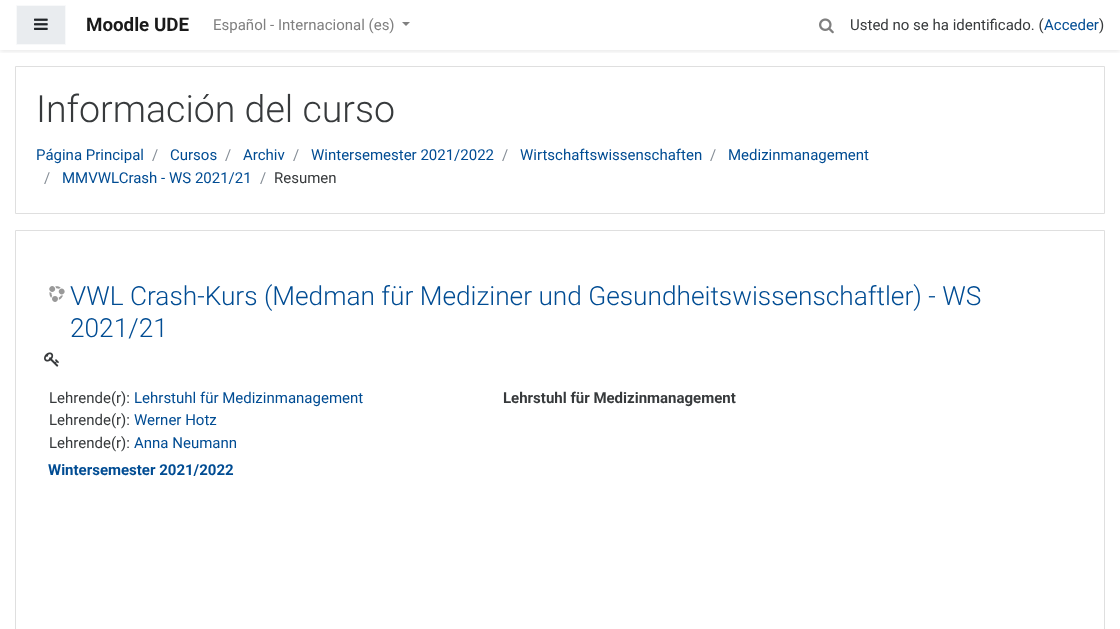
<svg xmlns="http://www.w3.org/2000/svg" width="1120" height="629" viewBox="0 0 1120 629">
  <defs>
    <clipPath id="clip1"><path d="M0 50h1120v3H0z"/></clipPath>
  </defs>
  <rect width="100%" height="100%" fill="#fff"/>
  <g clip-path="url(#clip1)">
    <path d="M0 2h1120v50H0z" fill="#00000014" filter="blur(2px)"/>
  </g>
  <path d="M16.5 5.5h49v39H16.5z" fill="#e9ecef" stroke="#f8f9fa"/>
  <image x="34" y="18" width="14" height="12" href="img/1.png"/>
  <path d="M402 22H410L406 26Z" fill="#808080"/>
  <image x="819" y="18" width="15" height="16" href="img/2.png"/>
  <path d="M15.5 66.5h1089v147H15.5z" fill="none" stroke="#dfdfdf"/>
  <path d="M15.5 230.5h1089v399H15.5z" fill="none" stroke="#dfdfdf"/>
  <image x="49" y="286" width="16" height="16" href="img/3.png"/>
  <image x="44" y="352" width="15" height="15" href="img/4.png"/>
  <text x="86" y="31" font-family="Roboto" font-size="18.75" font-weight="bold" fill="#1a1a1a">Moodle UDE</text>
  <text x="213" y="30" font-family="Roboto" font-size="15" fill="#808080">Español - Internacional (es)</text>
  <text x="850" y="30" font-family="Roboto" font-size="15" fill="#373a3c">Usted no se ha identificado. (</text>
  <text x="1044" y="30" font-family="Roboto" font-size="15" fill="#004c93">Acceder</text>
  <text x="1099" y="30" font-family="Roboto" font-size="15" fill="#373a3c">)</text>
  <text x="36" y="122" font-family="Roboto" font-size="37.5" font-weight="300" fill="#373a3c">Información del curso</text>
  <text x="36" y="160" font-family="Roboto" font-size="15" fill="#004c93">Página Principal</text>
  <text x="152" y="160" font-family="Roboto" font-size="15" fill="#868e96">/</text>
  <text x="170" y="160" font-family="Roboto" font-size="15" fill="#004c93">Cursos</text>
  <text x="225" y="160" font-family="Roboto" font-size="15" fill="#868e96">/</text>
  <text x="243" y="160" font-family="Roboto" font-size="15" fill="#004c93">Archiv</text>
  <text x="293" y="160" font-family="Roboto" font-size="15" fill="#868e96">/</text>
  <text x="311" y="160" font-family="Roboto" font-size="15" fill="#004c93">Wintersemester 2021/2022</text>
  <text x="502" y="160" font-family="Roboto" font-size="15" fill="#868e96">/</text>
  <text x="520" y="160" font-family="Roboto" font-size="15" fill="#004c93">Wirtschaftswissenschaften</text>
  <text x="710" y="160" font-family="Roboto" font-size="15" fill="#868e96">/</text>
  <text x="728" y="160" font-family="Roboto" font-size="15" fill="#004c93">Medizinmanagement</text>
  <text x="44" y="183" font-family="Roboto" font-size="15" fill="#868e96">/</text>
  <text x="62" y="183" font-family="Roboto" font-size="15" fill="#004c93">MMVWLCrash - WS 2021/21</text>
  <text x="260" y="183" font-family="Roboto" font-size="15" fill="#868e96">/</text>
  <text x="274" y="183" font-family="Roboto" font-size="15" fill="#373a3c">Resumen</text>
  <g font-family="Roboto" font-size="26.25" font-weight="300" fill="#004c93">
    <text x="70" y="305">VWL Crash-Kurs (Medman für Mediziner und Gesundheitswissenschaftler) - WS</text>
    <text x="70" y="337">2021/21</text>
  </g>
  <text x="49" y="403" font-family="Roboto" font-size="15" fill="#373a3c">Lehrende(r):</text>
  <text x="134" y="403" font-family="Roboto" font-size="15" fill="#004c93">Lehrstuhl für Medizinmanagement</text>
  <text x="49" y="425" font-family="Roboto" font-size="15" fill="#373a3c">Lehrende(r):</text>
  <text x="134" y="425" font-family="Roboto" font-size="15" fill="#004c93">Werner Hotz</text>
  <text x="49" y="448" font-family="Roboto" font-size="15" fill="#373a3c">Lehrende(r):</text>
  <text x="134" y="448" font-family="Roboto" font-size="15" fill="#004c93">Anna Neumann</text>
  <text x="503" y="403" font-family="Roboto" font-size="15" font-weight="bold" fill="#373a3c">Lehrstuhl für Medizinmanagement</text>
  <text x="48" y="475" font-family="Roboto" font-size="15" font-weight="bold" fill="#004c93">Wintersemester 2021/2022</text>
</svg>
